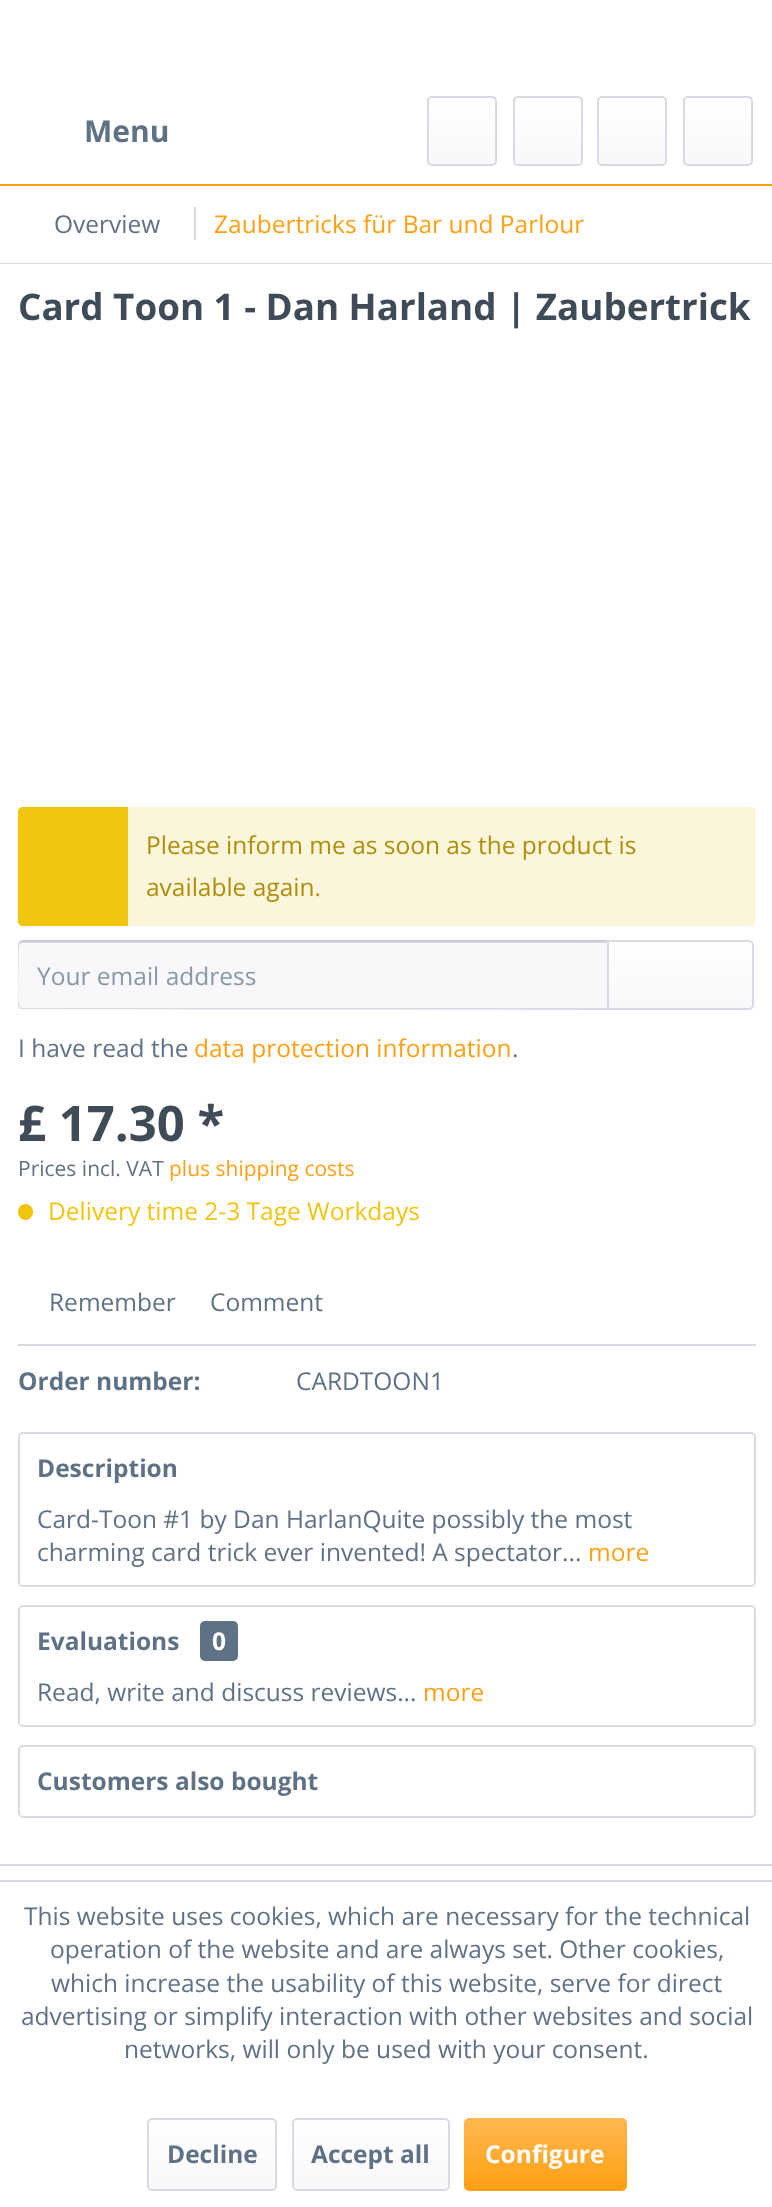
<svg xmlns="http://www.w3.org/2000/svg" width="772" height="2207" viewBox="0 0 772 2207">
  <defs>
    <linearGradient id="g1" gradientUnits="userSpaceOnUse" x1="462" y1="98" x2="462" y2="165"><stop offset="0" stop-color="#fff"/><stop offset="1" stop-color="#f8f8fa"/></linearGradient>
    <linearGradient id="g2" gradientUnits="userSpaceOnUse" x1="548" y1="98" x2="548" y2="165"><stop offset="0" stop-color="#fff"/><stop offset="1" stop-color="#f8f8fa"/></linearGradient>
    <linearGradient id="g3" gradientUnits="userSpaceOnUse" x1="632" y1="98" x2="632" y2="165"><stop offset="0" stop-color="#fff"/><stop offset="1" stop-color="#f8f8fa"/></linearGradient>
    <linearGradient id="g4" gradientUnits="userSpaceOnUse" x1="718" y1="98" x2="718" y2="165"><stop offset="0" stop-color="#fff"/><stop offset="1" stop-color="#f8f8fa"/></linearGradient>
    <linearGradient id="g5" gradientUnits="userSpaceOnUse" x1="681" y1="942" x2="681" y2="1008"><stop offset="0" stop-color="#fff"/><stop offset="1" stop-color="#f8f8fa"/></linearGradient>
    <linearGradient id="g6" gradientUnits="userSpaceOnUse" x1="212" y1="2119" x2="212" y2="2189"><stop offset="0" stop-color="#fff"/><stop offset="1" stop-color="#f8f8fa"/></linearGradient>
    <linearGradient id="g7" gradientUnits="userSpaceOnUse" x1="371" y1="2119" x2="371" y2="2189"><stop offset="0" stop-color="#fff"/><stop offset="1" stop-color="#f8f8fa"/></linearGradient>
    <linearGradient id="g8" gradientUnits="userSpaceOnUse" x1="545" y1="2118" x2="545" y2="2191"><stop offset="0" stop-color="#ffb850"/><stop offset="1" stop-color="#ff9f13"/></linearGradient>
  </defs>
  <rect width="100%" height="100%" fill="#fff"/>
  <path d="M0 184h772v2H0z" fill="#ff9f13"/>
  <rect x="429" y="98" width="66" height="67" rx="4" fill="url(#g1)"/>
  <rect x="428" y="97" width="68" height="68" rx="4" fill="none" stroke="#dadae5" stroke-width="2"/>
  <rect x="515" y="98" width="66" height="67" rx="4" fill="url(#g2)"/>
  <rect x="514" y="97" width="68" height="68" rx="4" fill="none" stroke="#dadae5" stroke-width="2"/>
  <rect x="599" y="98" width="66" height="67" rx="4" fill="url(#g3)"/>
  <rect x="598" y="97" width="68" height="68" rx="4" fill="none" stroke="#dadae5" stroke-width="2"/>
  <rect x="684" y="98" width="67" height="67" rx="4" fill="url(#g4)"/>
  <rect x="684" y="97" width="68" height="68" rx="4" fill="none" stroke="#dadae5" stroke-width="2"/>
  <path d="M0 263h772v1H0z" fill="#dadae5"/>
  <path d="M194 207h2v33H194z" fill="#dadae5"/>
  <rect x="18" y="807" width="738" height="119" rx="5" fill="#fbf5db"/>
  <path d="M23 807H128V926H23C20 926 18 924 18 921V812C18 809 20 807 23 807Z" fill="#f1c40f"/>
  <path d="M23 942H607V1008H23C21 1008 19 1006 19 1004V946C19 944 21 942 23 942Z" fill="#f8f8fa"/>
  <path d="M23 943H607V942H23C20 942 19 944 19 947C19 945 21 943 23 943Z" fill="#dadae5"/>
  <path d="M23 940C21 940 20 941 19 942L20 943L23 942H607L609 940Z" fill="#cbcbdb"/>
  <path d="M609 1010L21 1009L19 1008L20 1007L23 1008H607Z" fill="#dadae5"/>
  <path d="M19 942C18 942 18 944 18 945V1004C18 1005 18 1007 19 1008L20 1007L19 1004C18 1000 19 945 19 944L20 943Z" fill="#dadae5"/>
  <path d="M609 942H749C751 942 753 944 753 946V1004C753 1006 751 1008 749 1008H609Z" fill="url(#g5)"/>
  <path d="M608 941H749C751 941 753 943 753 945V1005C753 1007 751 1009 749 1009H608Z" fill="none" stroke="#dadae5" stroke-width="2"/>
  <rect x="18" y="1204" width="15" height="16" rx="7.5" fill="#f1c40f"/>
  <path d="M18 1344h738v2H18z" fill="#dadae5"/>
  <rect x="19" y="1433" width="736" height="153" rx="4" fill="none" stroke="#dadae5" stroke-width="2"/>
  <rect x="19" y="1606" width="736" height="120" rx="4" fill="none" stroke="#dadae5" stroke-width="2"/>
  <rect x="200" y="1621" width="38" height="40" rx="5" fill="#5f7285"/>
  <rect x="19" y="1746" width="736" height="71" rx="4" fill="none" stroke="#dadae5" stroke-width="2"/>
  <path d="M0 1864h772v2H0z" fill="#dadae5"/>
  <path d="M0 1880h772v2H0z" fill="#dadae5"/>
  <rect x="149" y="2119" width="126" height="70" rx="4" fill="url(#g6)"/>
  <rect x="148" y="2119" width="128" height="71" rx="4" fill="none" stroke="#dadae5" stroke-width="2"/>
  <rect x="294" y="2119" width="154" height="70" rx="4" fill="url(#g7)"/>
  <rect x="293" y="2119" width="156" height="71" rx="4" fill="none" stroke="#dadae5" stroke-width="2"/>
  <rect x="464" y="2118" width="163" height="73" rx="5" fill="url(#g8)"/>
  <text x="84" y="142" font-family="Open Sans" font-size="30" font-weight="bold" fill="#5f7285">Menu</text>
  <text x="54" y="233" font-family="Open Sans" font-size="24.5" fill="#5f7285">Overview</text>
  <text x="214" y="233" font-family="Open Sans" font-size="24.5" fill="#ff9f13">Zaubertricks für Bar und Parlour</text>
  <text x="18" y="320" font-family="Open Sans" font-size="36.75" font-weight="bold" fill="#3f4c58">Card Toon 1 - Dan Harland | Zaubertrick</text>
  <g font-family="Open Sans" font-size="24.5" fill="#ae8e0a">
    <text x="146" y="854">Please inform me as soon as the product is</text>
    <text x="146" y="896">available again.</text>
  </g>
  <text x="37" y="985" font-family="Open Sans" font-size="24.5" fill="#8798a9">Your email address</text>
  <text x="18" y="1057" font-family="Open Sans" font-size="24.5" fill="#5f7285">I have read the</text>
  <text x="194" y="1057" font-family="Open Sans" font-size="24.5" fill="#ff9f13">data protection information</text>
  <text x="512" y="1057" font-family="Open Sans" font-size="24.5" fill="#5f7285">.</text>
  <text x="18" y="1141" font-family="Open Sans" font-size="49" font-weight="bold" fill="#3f4c58">£ 17.30 *</text>
  <text x="18" y="1176" font-family="Open Sans" font-size="21" fill="#5f7285">Prices incl. VAT</text>
  <text x="169" y="1176" font-family="Open Sans" font-size="21" fill="#ff9f13">plus shipping costs</text>
  <text x="48" y="1220" font-family="Open Sans" font-size="24.5" fill="#f1c40f">Delivery time 2-3 Tage Workdays</text>
  <g font-family="Open Sans" font-size="24.5" fill="#5f7285">
    <text x="49" y="1311">Remember</text>
    <text x="210" y="1311">Comment</text>
  </g>
  <text x="18" y="1390" font-family="Open Sans" font-size="24.5" font-weight="bold" fill="#5f7285">Order number:</text>
  <text x="296" y="1390" font-family="Open Sans" font-size="24.5" fill="#5f7285">CARDTOON1</text>
  <text x="37" y="1477" font-family="Open Sans" font-size="24.5" font-weight="bold" fill="#5f7285">Description</text>
  <g font-family="Open Sans" font-size="24.5" fill="#5f7285">
    <text x="37" y="1528">Card-Toon #1 by Dan HarlanQuite possibly the most</text>
    <text x="37" y="1561">charming card trick ever invented! A spectator...</text>
  </g>
  <text x="588" y="1561" font-family="Open Sans" font-size="24.5" fill="#ff9f13">more</text>
  <text x="37" y="1650" font-family="Open Sans" font-size="24.5" font-weight="bold" fill="#5f7285">Evaluations</text>
  <text x="212" y="1650" font-family="Open Sans" font-size="24.5" font-weight="bold" fill="#fff">0</text>
  <text x="37" y="1701" font-family="Open Sans" font-size="24.5" fill="#5f7285">Read, write and discuss reviews...</text>
  <text x="423" y="1701" font-family="Open Sans" font-size="24.5" fill="#ff9f13">more</text>
  <text x="37" y="1790" font-family="Open Sans" font-size="24.5" font-weight="bold" fill="#5f7285">Customers also bought</text>
  <g font-family="Open Sans" font-size="24.5" fill="#5f7285">
    <text x="24" y="1925">This website uses cookies, which are necessary for the technical</text>
    <text x="50" y="1958">operation of the website and are always set. Other cookies,</text>
    <text x="51" y="1992">which increase the usability of this website, serve for direct</text>
    <text x="21" y="2025">advertising or simplify interaction with other websites and social</text>
    <text x="124" y="2058">networks, will only be used with your consent.</text>
  </g>
  <g font-family="Open Sans" font-size="24.5" font-weight="bold" fill="#5f7285">
    <text x="167" y="2163">Decline</text>
    <text x="311" y="2163">Accept all</text>
  </g>
  <text x="485" y="2163" font-family="Open Sans" font-size="24.5" font-weight="bold" fill="#fff">Configure</text>
</svg>
